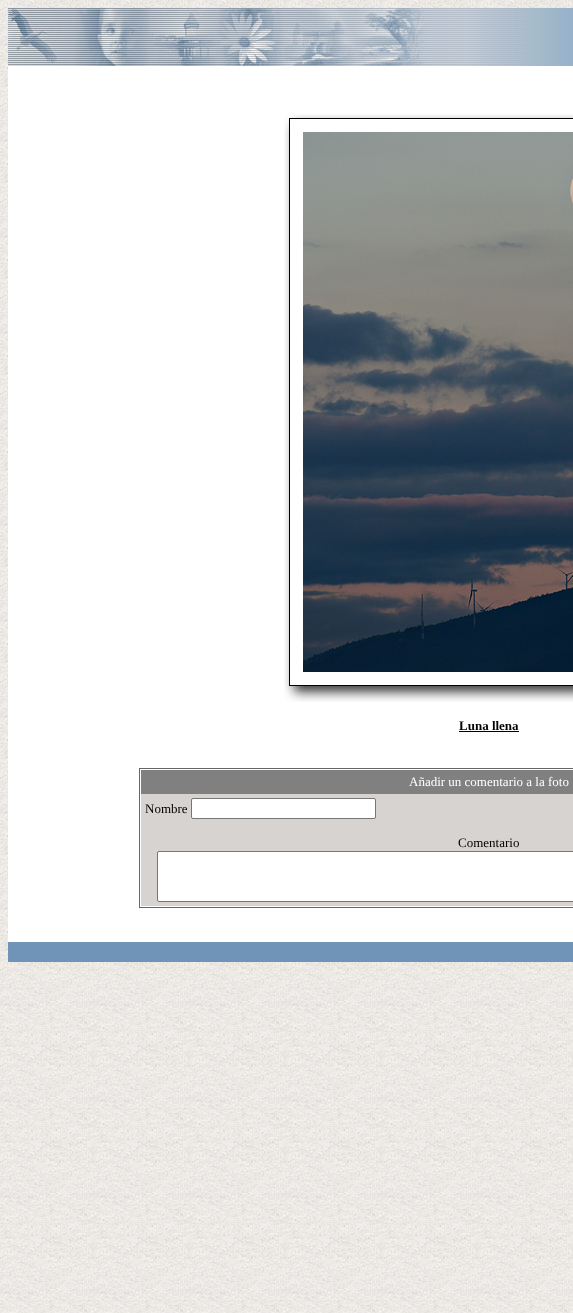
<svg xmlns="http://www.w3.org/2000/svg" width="573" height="1313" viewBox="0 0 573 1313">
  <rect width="100%" height="100%" fill="#fff"/>
  <image x="0" y="0" width="573" height="1313" href="img/1.png"/>
  <image x="8" y="8" width="565" height="58" href="img/2.png"/>
  <path d="M8 66h565v876H8z" fill="#fff"/>
  <image x="284" y="114" width="289" height="588" href="img/3.png"/>
  <path d="M459 731h60v1H459z" fill="#000"/>
  <path d="M139 768h434v1H139z" fill="#666"/>
  <path d="M139 907h434v1H139z" fill="#666"/>
  <path d="M139 768h1v140H139z" fill="#666"/>
  <path d="M141 770h432v24H141z" fill="#808080"/>
  <path d="M141 794h432v112H141z" fill="#d7d3d0"/>
  <rect x="191.5" y="798.5" width="184" height="20" rx="1.5" fill="#fff" stroke="#767676"/>
  <rect x="157.5" y="851.5" width="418" height="50" rx="1.5" fill="#fff" stroke="#767676"/>
  <path d="M8 942h565v20H8z" fill="#7094b7"/>
  <text x="459" y="730" font-family="Liberation Serif" font-size="13" font-weight="bold" fill="#000">Luna llena</text>
  <text x="409" y="786" font-family="Liberation Serif" font-size="13" fill="#fff">Añadir un comentario a la foto</text>
  <g font-family="Liberation Serif" font-size="13" fill="#000">
    <text x="145" y="813">Nombre</text>
    <text x="458" y="847">Comentario</text>
  </g>
</svg>
